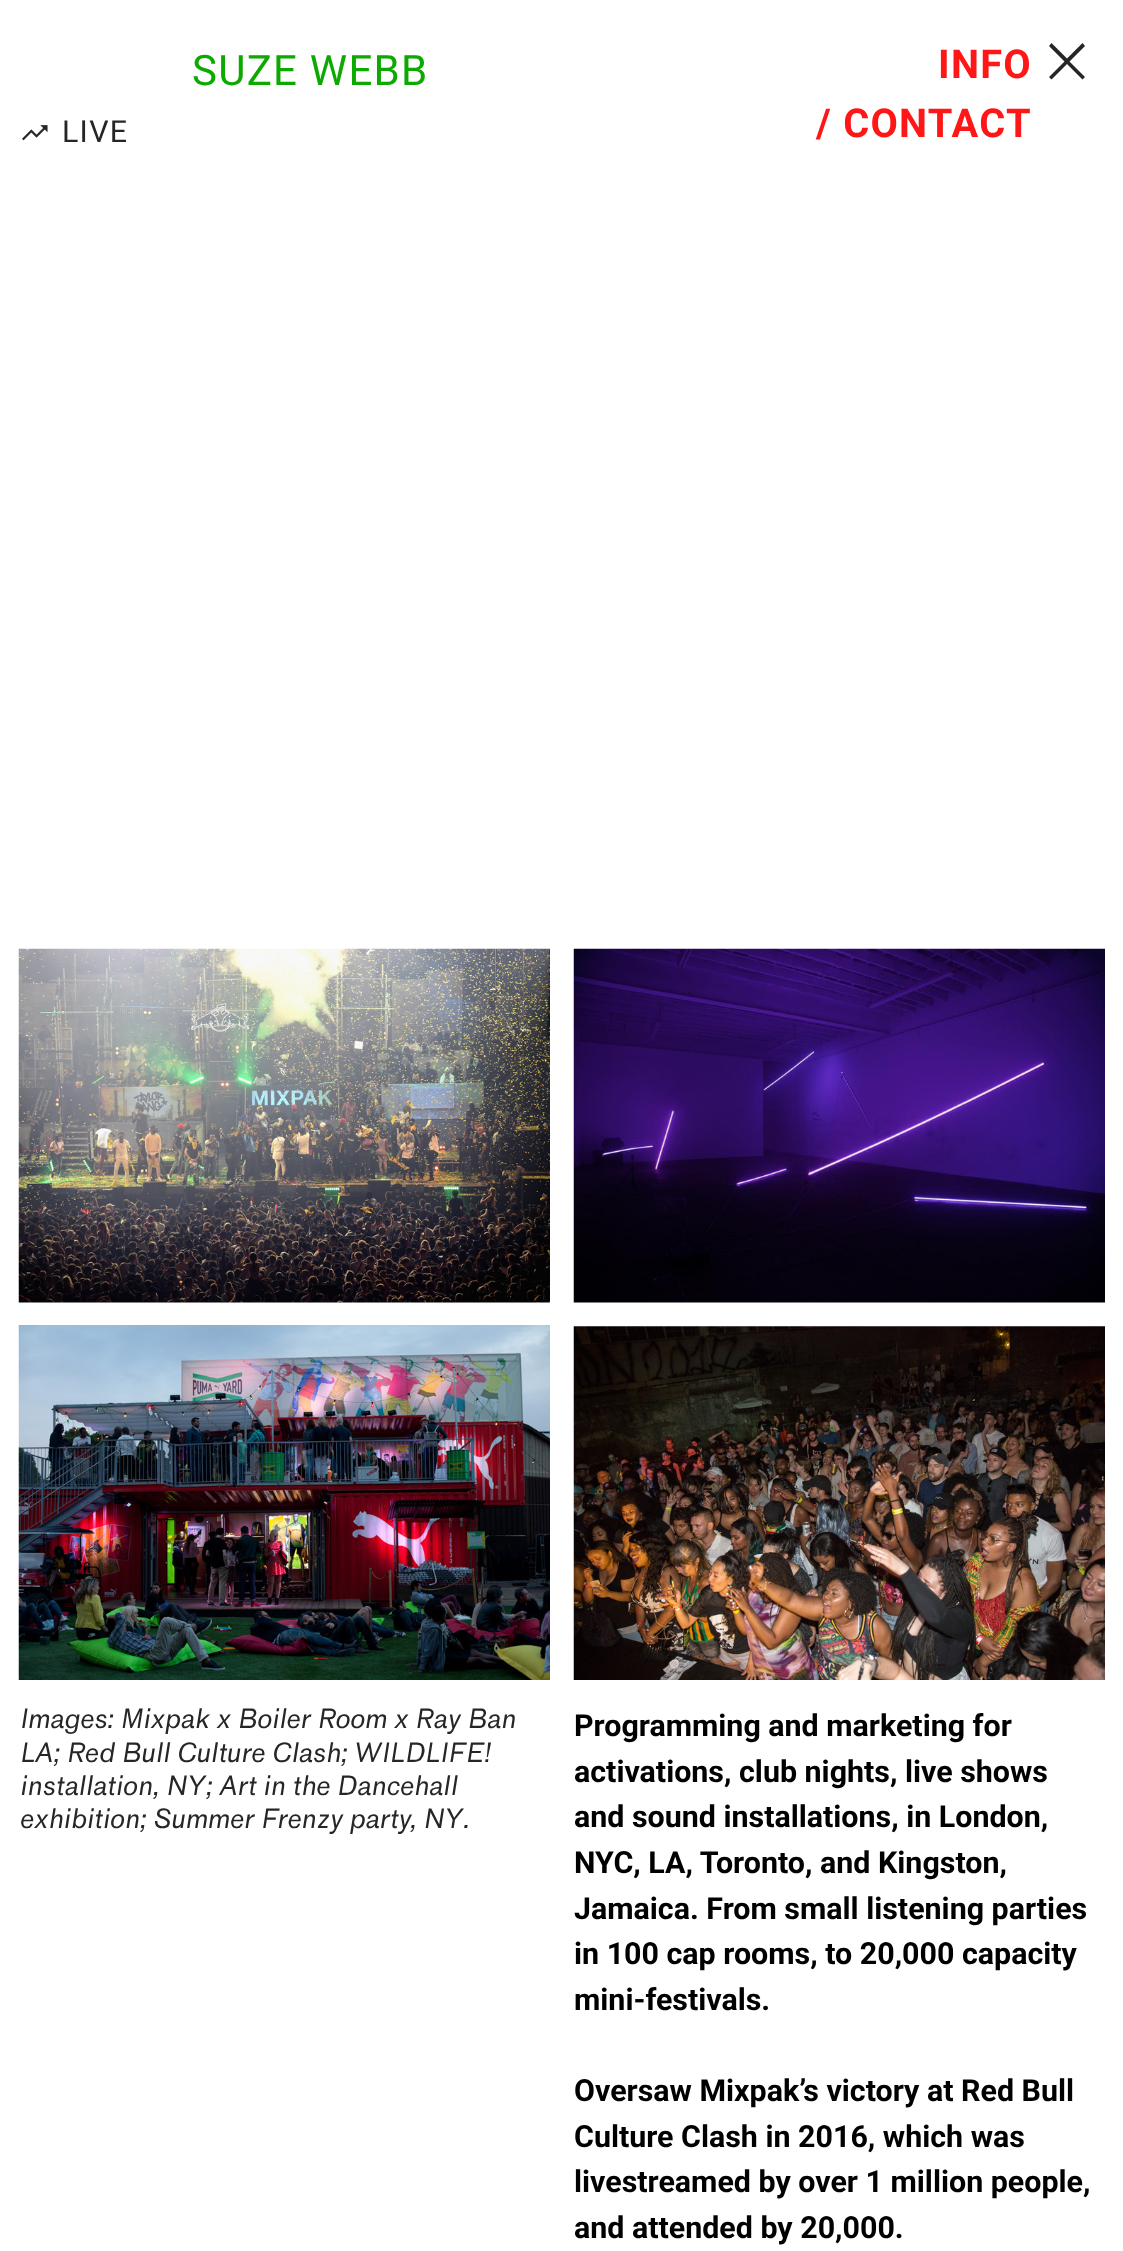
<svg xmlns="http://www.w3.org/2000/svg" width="1123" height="2251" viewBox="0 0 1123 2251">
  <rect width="100%" height="100%" fill="#fff"/>
  <path d="M1049 46L1064.5 61.5L1049 77L1051.5 79.5L1067 64L1082.5 79.5L1085 77L1069.5 61.5L1085 46L1082.5 43L1067 58.5L1051.5 43Z" fill="#262626"/>
  <image x="22" y="125" width="26" height="16" href="img/1.png"/>
  <image x="18" y="948" width="532" height="355" href="img/2.png"/>
  <image x="18" y="1325" width="532" height="355" href="img/3.png"/>
  <image x="573" y="948" width="532" height="355" href="img/4.png"/>
  <image x="573" y="1326" width="532" height="354" href="img/5.png"/>
  <text x="192" y="85" font-family="Roboto" font-size="42" letter-spacing="1.25" fill="#0ca900">SUZE WEBB</text>
  <g font-family="Roboto" font-size="39.75" font-weight="bold" letter-spacing="1.25" fill="#ff1717">
    <text x="938" y="78">INFO</text>
    <text x="816" y="137">/ CONTACT</text>
  </g>
  <text x="62" y="142" font-family="Roboto" font-size="30.4" letter-spacing="1.25" fill="#262626">LIVE</text>
  <g font-family="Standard" font-size="25.75" font-style="italic" letter-spacing="0.25" fill="#262626">
    <text x="19" y="1728">Images: Mixpak x Boiler Room x Ray Ban</text>
    <text x="19" y="1762">LA; Red Bull Culture Clash; WILDLIFE!</text>
    <text x="19" y="1795">installation, NY; Art in the Dancehall</text>
    <text x="19" y="1828">exhibition; Summer Frenzy party, NY.</text>
  </g>
  <g font-family="Roboto" font-size="30.4" font-weight="bold" fill="#000">
    <text x="574" y="1736">Programming and marketing for</text>
    <text x="574" y="1782">activations, club nights, live shows</text>
    <text x="574" y="1827">and sound installations, in London,</text>
    <text x="574" y="1873">NYC, LA, Toronto, and Kingston,</text>
    <text x="574" y="1919">Jamaica. From small listening parties</text>
    <text x="574" y="1964">in 100 cap rooms, to 20,000 capacity</text>
    <text x="574" y="2010">mini-festivals.</text>
    <text x="574" y="2101">Oversaw Mixpak’s victory at Red Bull</text>
    <text x="574" y="2147">Culture Clash in 2016, which was</text>
    <text x="574" y="2192">livestreamed by over 1 million people,</text>
    <text x="574" y="2238">and attended by 20,000.</text>
  </g>
</svg>
